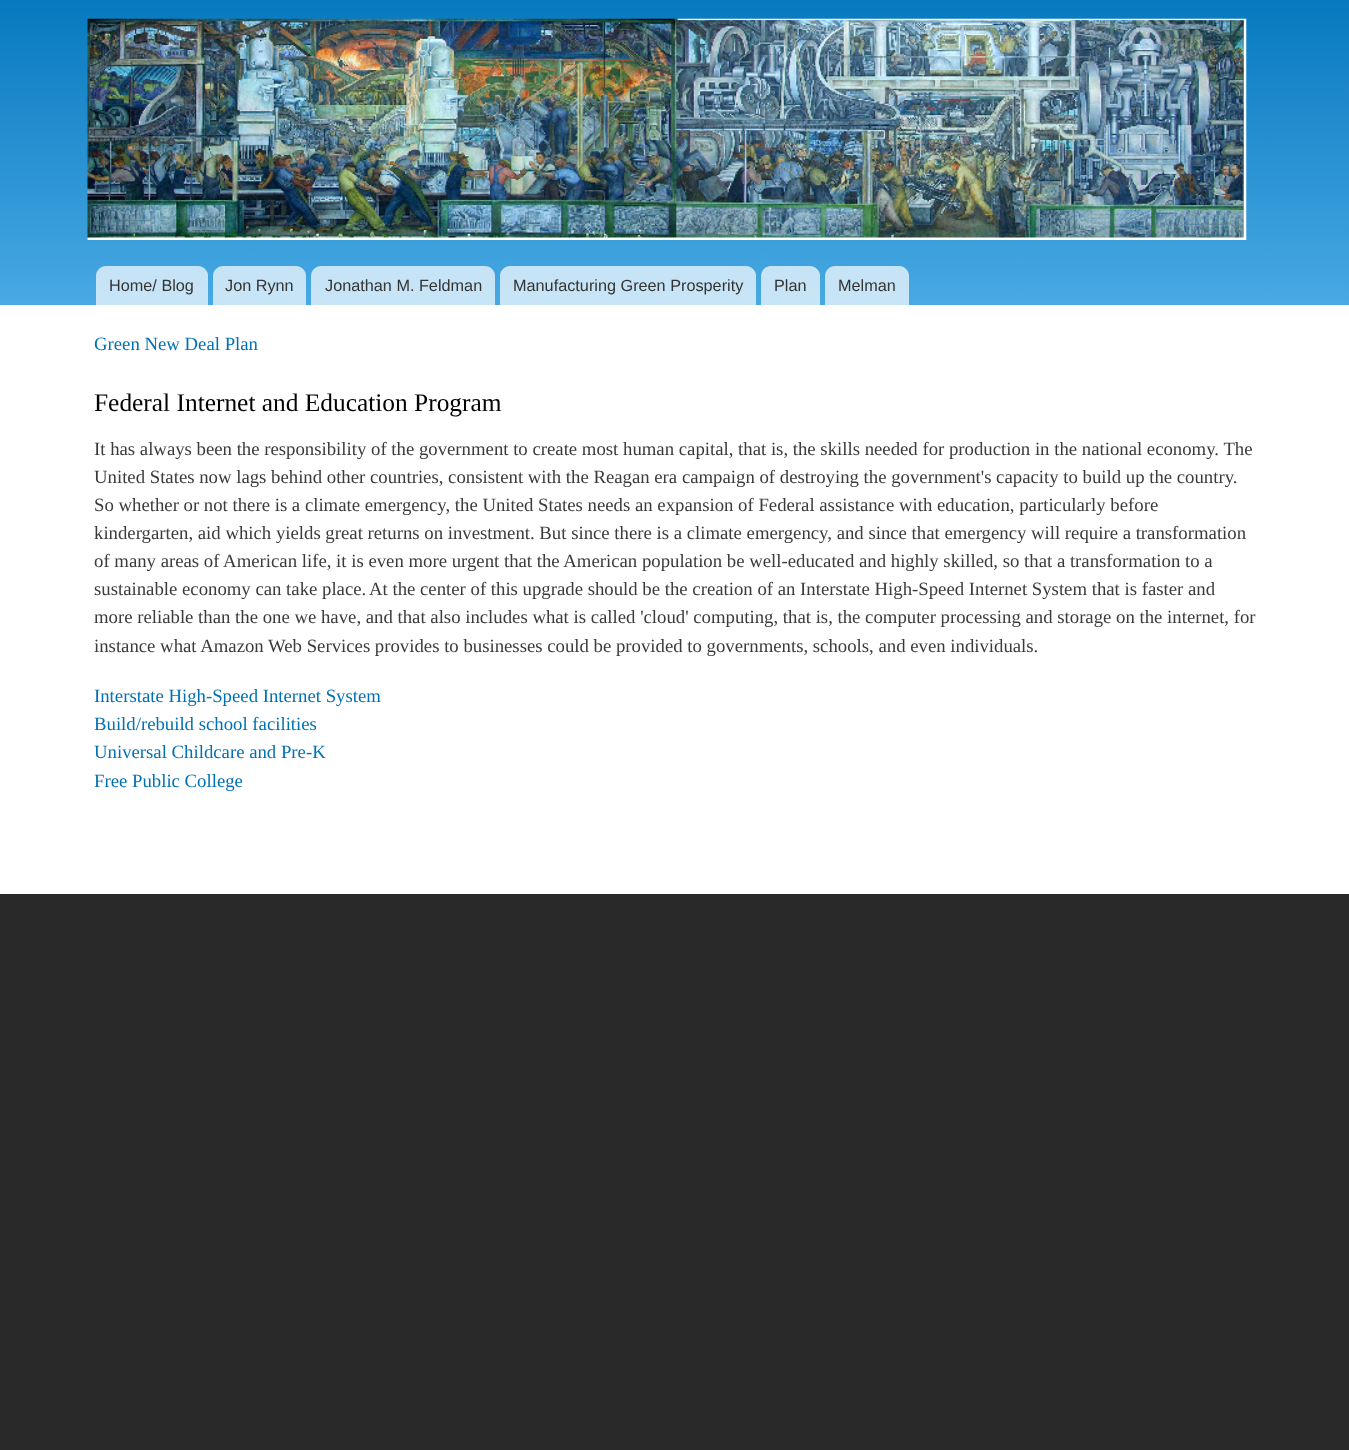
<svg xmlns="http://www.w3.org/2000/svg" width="1349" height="1450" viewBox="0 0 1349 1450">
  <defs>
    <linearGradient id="g1" gradientUnits="userSpaceOnUse" x1="675" y1="0" x2="675" y2="305"><stop offset="0" stop-color="#0779bf"/><stop offset="1" stop-color="#48a9e4"/></linearGradient>
  </defs>
  <rect width="100%" height="100%" fill="#292929"/>
  <path d="M0 305h1349v589H0z" fill="#fff"/>
  <path d="M0 0h1349v305H0z" fill="url(#g1)"/>
  <image x="87" y="18" width="1160" height="222" href="img/1.png"/>
  <path d="M106 266H198C203.5 266 208 270.5 208 276V305H96V276C96 270.5 100.5 266 106 266Z" fill="#ffffffb3"/>
  <path d="M223 266H296C301.5 266 306 270.5 306 276V305H213V276C213 270.5 217.5 266 223 266Z" fill="#ffffffb3"/>
  <path d="M321 266H485C490.5 266 495 270.5 495 276V305H311V276C311 270.5 315.5 266 321 266Z" fill="#ffffffb3"/>
  <path d="M510 266H746C751.5 266 756 270.5 756 276V305H500V276C500 270.5 504.5 266 510 266Z" fill="#ffffffb3"/>
  <path d="M771 266H810C815.5 266 820 270.5 820 276V305H761V276C761 270.5 765.5 266 771 266Z" fill="#ffffffb3"/>
  <path d="M835 266H899C904.5 266 909 270.5 909 276V305H825V276C825 270.5 829.5 266 835 266Z" fill="#ffffffb3"/>
  <g font-family="Liberation Sans" font-size="16.25" fill="#333">
    <text x="109" y="291">Home/ Blog</text>
    <text x="225" y="291">Jon Rynn</text>
    <text x="325" y="291">Jonathan M. Feldman</text>
    <text x="513" y="291">Manufacturing Green Prosperity</text>
    <text x="774" y="291">Plan</text>
    <text x="838" y="291">Melman</text>
  </g>
  <text x="94" y="350" font-family="Liberation Serif" font-size="18.75" fill="#0071b3">Green New Deal Plan</text>
  <text x="94" y="411" font-family="Liberation Serif" font-size="25.4" fill="#000">Federal Internet and Education Program</text>
  <g font-family="Liberation Serif" font-size="18.75" fill="#3b3b3b">
    <text x="94" y="455">It has always been the responsibility of the government to create most human capital, that is, the skills needed for production in the national economy. The</text>
    <text x="94" y="483">United States now lags behind other countries, consistent with the Reagan era campaign of destroying the government's capacity to build up the country.</text>
    <text x="94" y="511">So whether or not there is a climate emergency, the United States needs an expansion of Federal assistance with education, particularly before</text>
    <text x="94" y="539">kindergarten, aid which yields great returns on investment. But since there is a climate emergency, and since that emergency will require a transformation</text>
    <text x="94" y="567">of many areas of American life, it is even more urgent that the American population be well-educated and highly skilled, so that a transformation to a</text>
    <text x="94" y="595">sustainable economy can take place.</text>
    <text x="369" y="595">At the center of this upgrade should be the creation of an Interstate High-Speed Internet System that is faster and</text>
    <text x="94" y="623">more reliable than the one we have, and that also includes what is called 'cloud' computing, that is, the computer processing and storage on the internet, for</text>
    <text x="94" y="652">instance what Amazon Web Services provides to businesses could be provided to governments, schools, and even individuals.</text>
  </g>
  <g font-family="Liberation Serif" font-size="18.75" fill="#0071b3">
    <text x="94" y="702">Interstate High-Speed Internet System</text>
    <text x="94" y="730">Build/rebuild school facilities</text>
    <text x="94" y="758">Universal Childcare and Pre-K</text>
    <text x="94" y="787">Free Public College</text>
  </g>
</svg>
